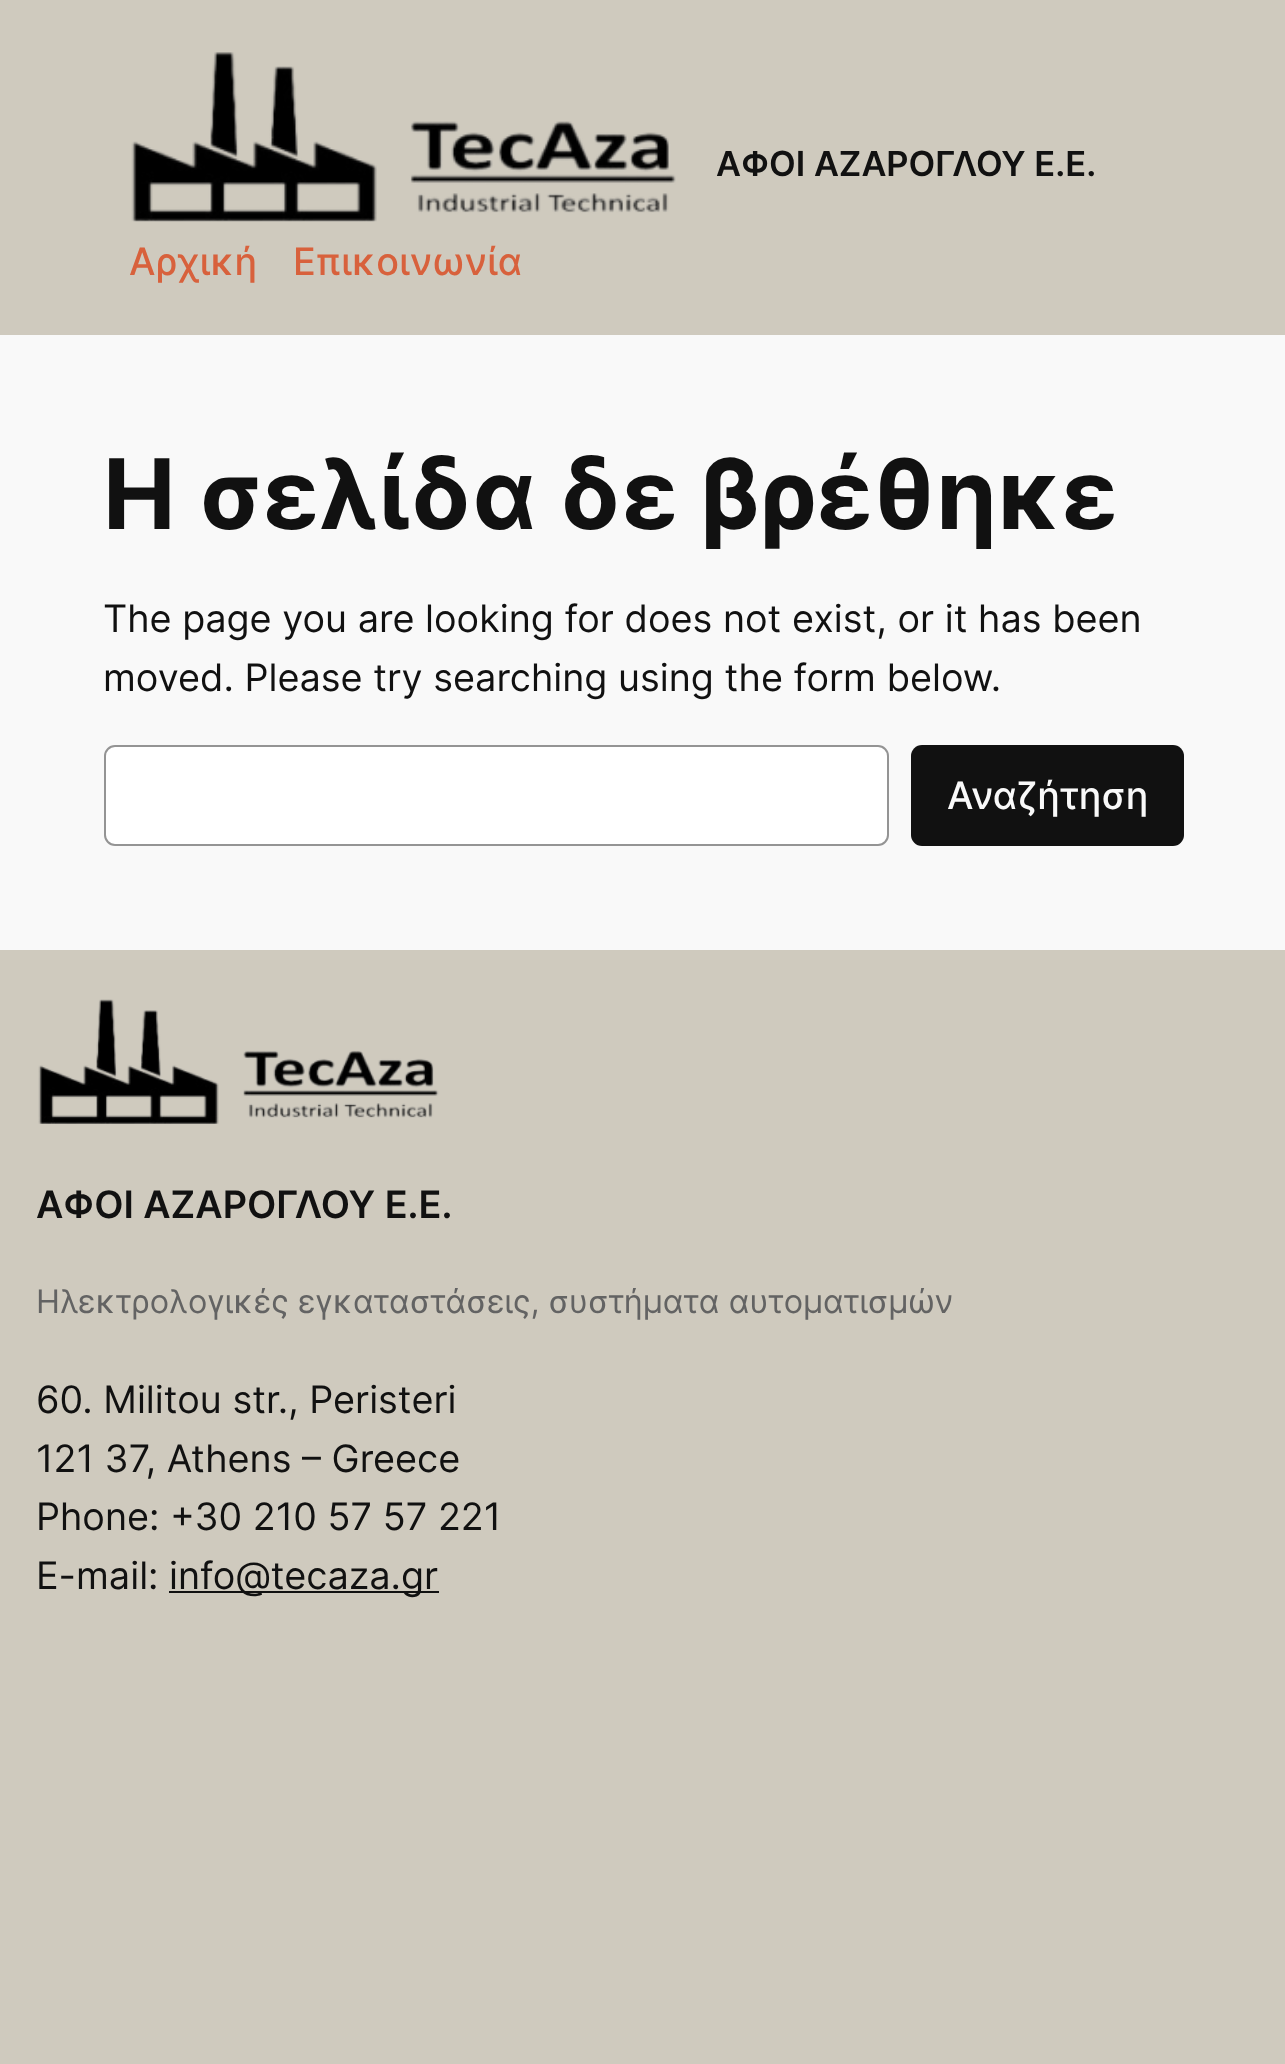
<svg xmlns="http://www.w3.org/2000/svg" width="1285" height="2064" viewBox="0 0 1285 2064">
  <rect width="100%" height="100%" fill="#f9f9f9"/>
  <path d="M0 0h1285v335H0z" fill="#cfcabe"/>
  <image x="131" y="52" width="545" height="170" href="img/1.png"/>
  <rect x="105" y="746" width="783" height="99" rx="10" fill="#fff" stroke="#949494" stroke-width="2"/>
  <rect x="911" y="745" width="273" height="101" rx="11" fill="#111"/>
  <path d="M0 950h1285v1114H0z" fill="#cfcabe"/>
  <image x="38" y="999" width="401" height="125" href="img/2.png"/>
  <path d="M169 1591h270v2H169z" fill="#111"/>
  <text x="716" y="176" font-family="Inter" font-size="34.5" font-weight="600" fill="#111">ΑΦΟΙ ΑΖΑΡΟΓΛΟΥ Ε.Ε.</text>
  <g font-family="Inter" font-size="37.8" font-weight="500" fill="#d8613c">
    <text x="129" y="275">Αρχική</text>
    <text x="293" y="275">Επικοινωνία</text>
  </g>
  <text x="103" y="529" font-family="Inter" font-size="97.25" font-weight="bold" fill="#111">Η σελίδα δε βρέθηκε</text>
  <g font-family="Inter" font-size="37.8" fill="#111">
    <text x="103" y="632">The page you are looking for does not exist, or it has been</text>
    <text x="103" y="691">moved. Please try searching using the form below.</text>
  </g>
  <text x="947" y="809" font-family="Inter" font-size="37.8" font-weight="500" fill="#f9f9f9">Αναζήτηση</text>
  <text x="36" y="1218" font-family="Inter" font-size="37.8" font-weight="600" fill="#111">ΑΦΟΙ ΑΖΑΡΟΓΛΟΥ Ε.Ε.</text>
  <text x="36" y="1313" font-family="Inter" font-size="32.4" fill="#636363">Ηλεκτρολογικές εγκαταστάσεις, συστήματα αυτοματισμών</text>
  <g font-family="Inter" font-size="37.8" fill="#111">
    <text x="36" y="1413">60. Militou str., Peristeri</text>
    <text x="36" y="1472">121 37, Athens – Greece</text>
    <text x="36" y="1530">Phone: +30 210 57 57 221</text>
    <text x="36" y="1589">E-mail:</text>
    <text x="169" y="1589">info@tecaza.gr</text>
  </g>
</svg>
